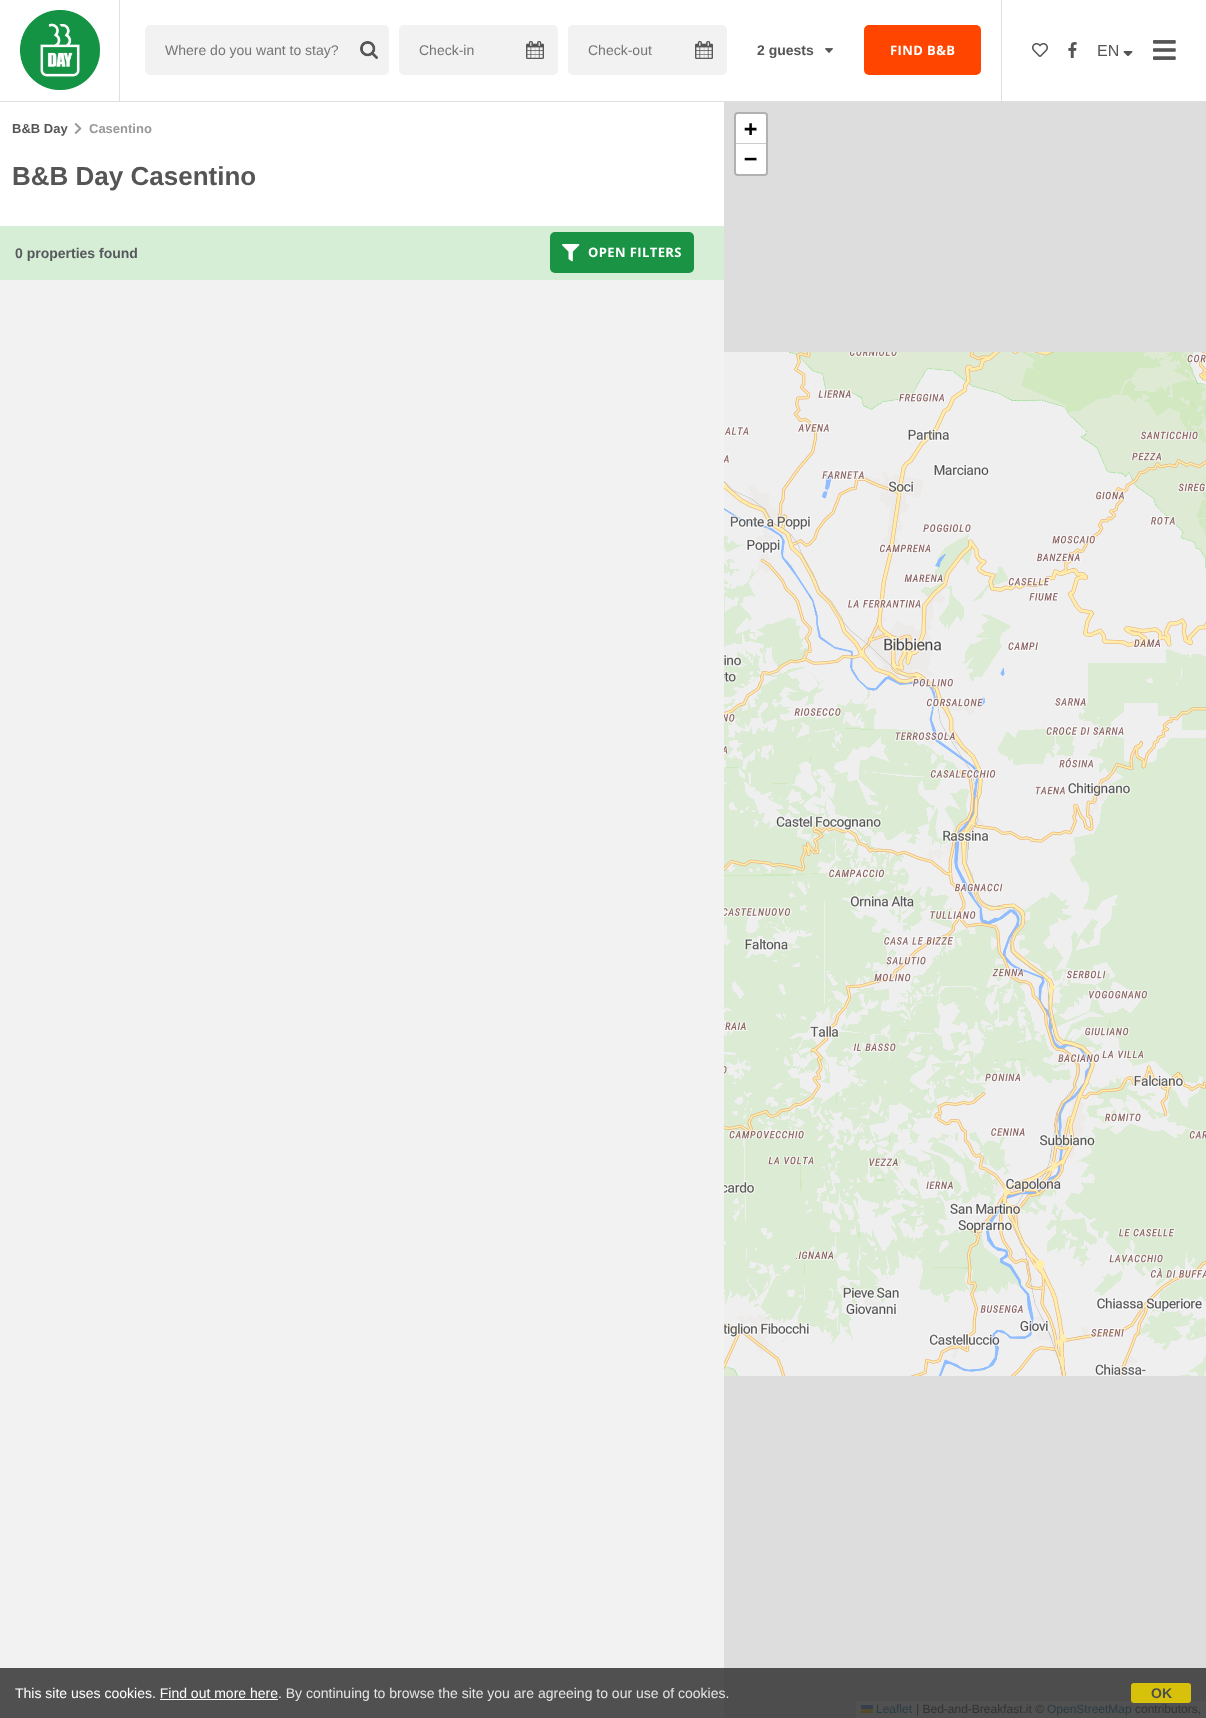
<svg xmlns="http://www.w3.org/2000/svg" width="1206" height="1718" viewBox="0 0 1206 1718">
  <rect width="100%" height="100%" fill="#fff"/>
  <path d="M0 101h1206v1H0z" fill="#dce0e0"/>
  <path d="M119 0h1v102H119z" fill="#dce0e0"/>
  <image x="19" y="10" width="81" height="80" href="img/1.png"/>
  <rect x="145" y="25" width="244" height="50" rx="5" fill="#f2f2f2"/>
  <image x="360" y="41" width="18" height="18" href="img/2.png"/>
  <rect x="399" y="25" width="159" height="50" rx="5" fill="#f2f2f2"/>
  <image x="526" y="41" width="18" height="18" href="img/3.png"/>
  <rect x="568" y="25" width="159" height="50" rx="5" fill="#f2f2f2"/>
  <image x="695" y="41" width="18" height="18" href="img/4.png"/>
  <image x="825" y="48" width="8" height="5" href="img/5.png"/>
  <rect x="864" y="25" width="117" height="50" rx="5" fill="#ff4500"/>
  <path d="M1001 0h1v102H1001z" fill="#dce0e0"/>
  <image x="1032" y="43" width="16" height="14" href="img/6.png"/>
  <image x="1068" y="42" width="9" height="16" href="img/7.png"/>
  <image x="1123" y="51" width="10" height="6" href="img/8.png"/>
  <image x="1153" y="40" width="23" height="20" href="img/9.png"/>
  <path d="M0 280h724v1388H0z" fill="#f2f2f2"/>
  <path d="M0 1668h724v50H0z" fill="#505050"/>
  <image x="74" y="123" width="8" height="11" href="img/10.png"/>
  <path d="M0 226h724v54H0z" fill="#d7eed6"/>
  <rect x="550" y="232" width="144" height="41" rx="5" fill="#1a9444"/>
  <image x="562" y="244" width="18" height="18" href="img/11.png"/>
  <path d="M724 102h482v1566H724z" fill="#ddd"/>
  <path d="M724 1668h482v50H724z" fill="#4d4d4d"/>
  <rect x="735" y="113" width="32" height="62" rx="3" fill="none" stroke="#b1b1b1" stroke-width="2"/>
  <path d="M738 114H764C765 114 766 115 766 116V144H736V116C736 115 737 114 738 114Z" fill="#fff"/>
  <path d="M736 143h30v1H736z" fill="#ccc"/>
  <path d="M736 144H766V172C766 173 765 174 764 174H738C737 174 736 173 736 172Z" fill="#fff"/>
  <path d="M856 1701h350v17H856z" fill="#515151"/>
  <path d="M861 1705h12v4H861z" fill="#373e4d"/>
  <path d="M861 1709h12v3H861z" fill="#524b2b"/>
  <path d="M861 1712h12v1H861z" fill="#4d482b"/>
  <image x="724" y="352" width="72" height="256" href="img/12.png"/>
  <image x="796" y="352" width="256" height="256" href="img/13.png"/>
  <image x="1052" y="352" width="154" height="256" href="img/14.png"/>
  <image x="724" y="608" width="72" height="256" href="img/15.png"/>
  <image x="796" y="608" width="256" height="256" href="img/16.png"/>
  <image x="1052" y="608" width="154" height="256" href="img/17.png"/>
  <image x="724" y="864" width="72" height="256" href="img/18.png"/>
  <image x="796" y="864" width="256" height="256" href="img/19.png"/>
  <image x="1052" y="864" width="154" height="256" href="img/20.png"/>
  <image x="724" y="1120" width="72" height="256" href="img/21.png"/>
  <image x="796" y="1120" width="256" height="256" href="img/22.png"/>
  <image x="1052" y="1120" width="154" height="256" href="img/23.png"/>
  <path d="M160 1699h118v1H160z" fill="#fdfdfd"/>
  <rect x="1131" y="1683" width="60" height="20" rx="3" fill="#f1d600d9"/>
  <g font-family="Liberation Sans" font-size="14" fill="#757575">
    <text x="165" y="55">Where do you want to stay?</text>
    <text x="419" y="55">Check-in</text>
    <text x="588" y="55">Check-out</text>
  </g>
  <text x="757" y="55" font-family="Liberation Sans" font-size="14" font-weight="bold" fill="#555">2 guests</text>
  <text x="890" y="55" font-family="Open Sans" font-size="13" font-weight="bold" letter-spacing="0.4" fill="#fff">FIND B&amp;B</text>
  <text x="1097" y="56" font-family="Liberation Sans" font-size="16" fill="#555">EN</text>
  <text x="12" y="133" font-family="Liberation Sans" font-size="13" font-weight="bold" fill="#555">B&amp;B Day</text>
  <text x="89" y="133" font-family="Liberation Sans" font-size="13" font-weight="bold" fill="#999">Casentino</text>
  <text x="12" y="185" font-family="Liberation Sans" font-size="26" font-weight="bold" fill="#555">B&amp;B Day Casentino</text>
  <text x="15" y="258" font-family="Liberation Sans" font-size="14" font-weight="bold" fill="#565a5c">0 properties found</text>
  <text x="588" y="257" font-family="Open Sans" font-size="13" font-weight="bold" letter-spacing="0.4" fill="#fff">OPEN FILTERS</text>
  <g font-family="DejaVu Sans Mono" font-size="22" font-weight="bold" fill="#000">
    <text x="744" y="136">+</text>
    <text x="744" y="166">−</text>
  </g>
  <text x="876" y="1713" font-family="Liberation Sans" font-size="12" fill="#2b3d45">Leaflet</text>
  <text x="916" y="1713" font-family="Liberation Sans" font-size="12" fill="#333">| Bed-and-Breakfast.it ©</text>
  <text x="1047" y="1713" font-family="Liberation Sans" font-size="12" fill="#2b3d45">OpenStreetMap</text>
  <text x="1135" y="1713" font-family="Liberation Sans" font-size="12" fill="#333">contributors,</text>
  <text x="15" y="1698" font-family="Liberation Sans" font-size="14" fill="#fff">This site uses cookies. Find out more here</text>
  <text x="278" y="1698" font-family="Liberation Sans" font-size="14" fill="#e5e5e5">. By continuing to browse the site you are agreeing to our use of cookies.</text>
  <text x="1151" y="1698" font-family="Liberation Sans" font-size="14" font-weight="bold" fill="#4d4d4d">OK</text>
</svg>
